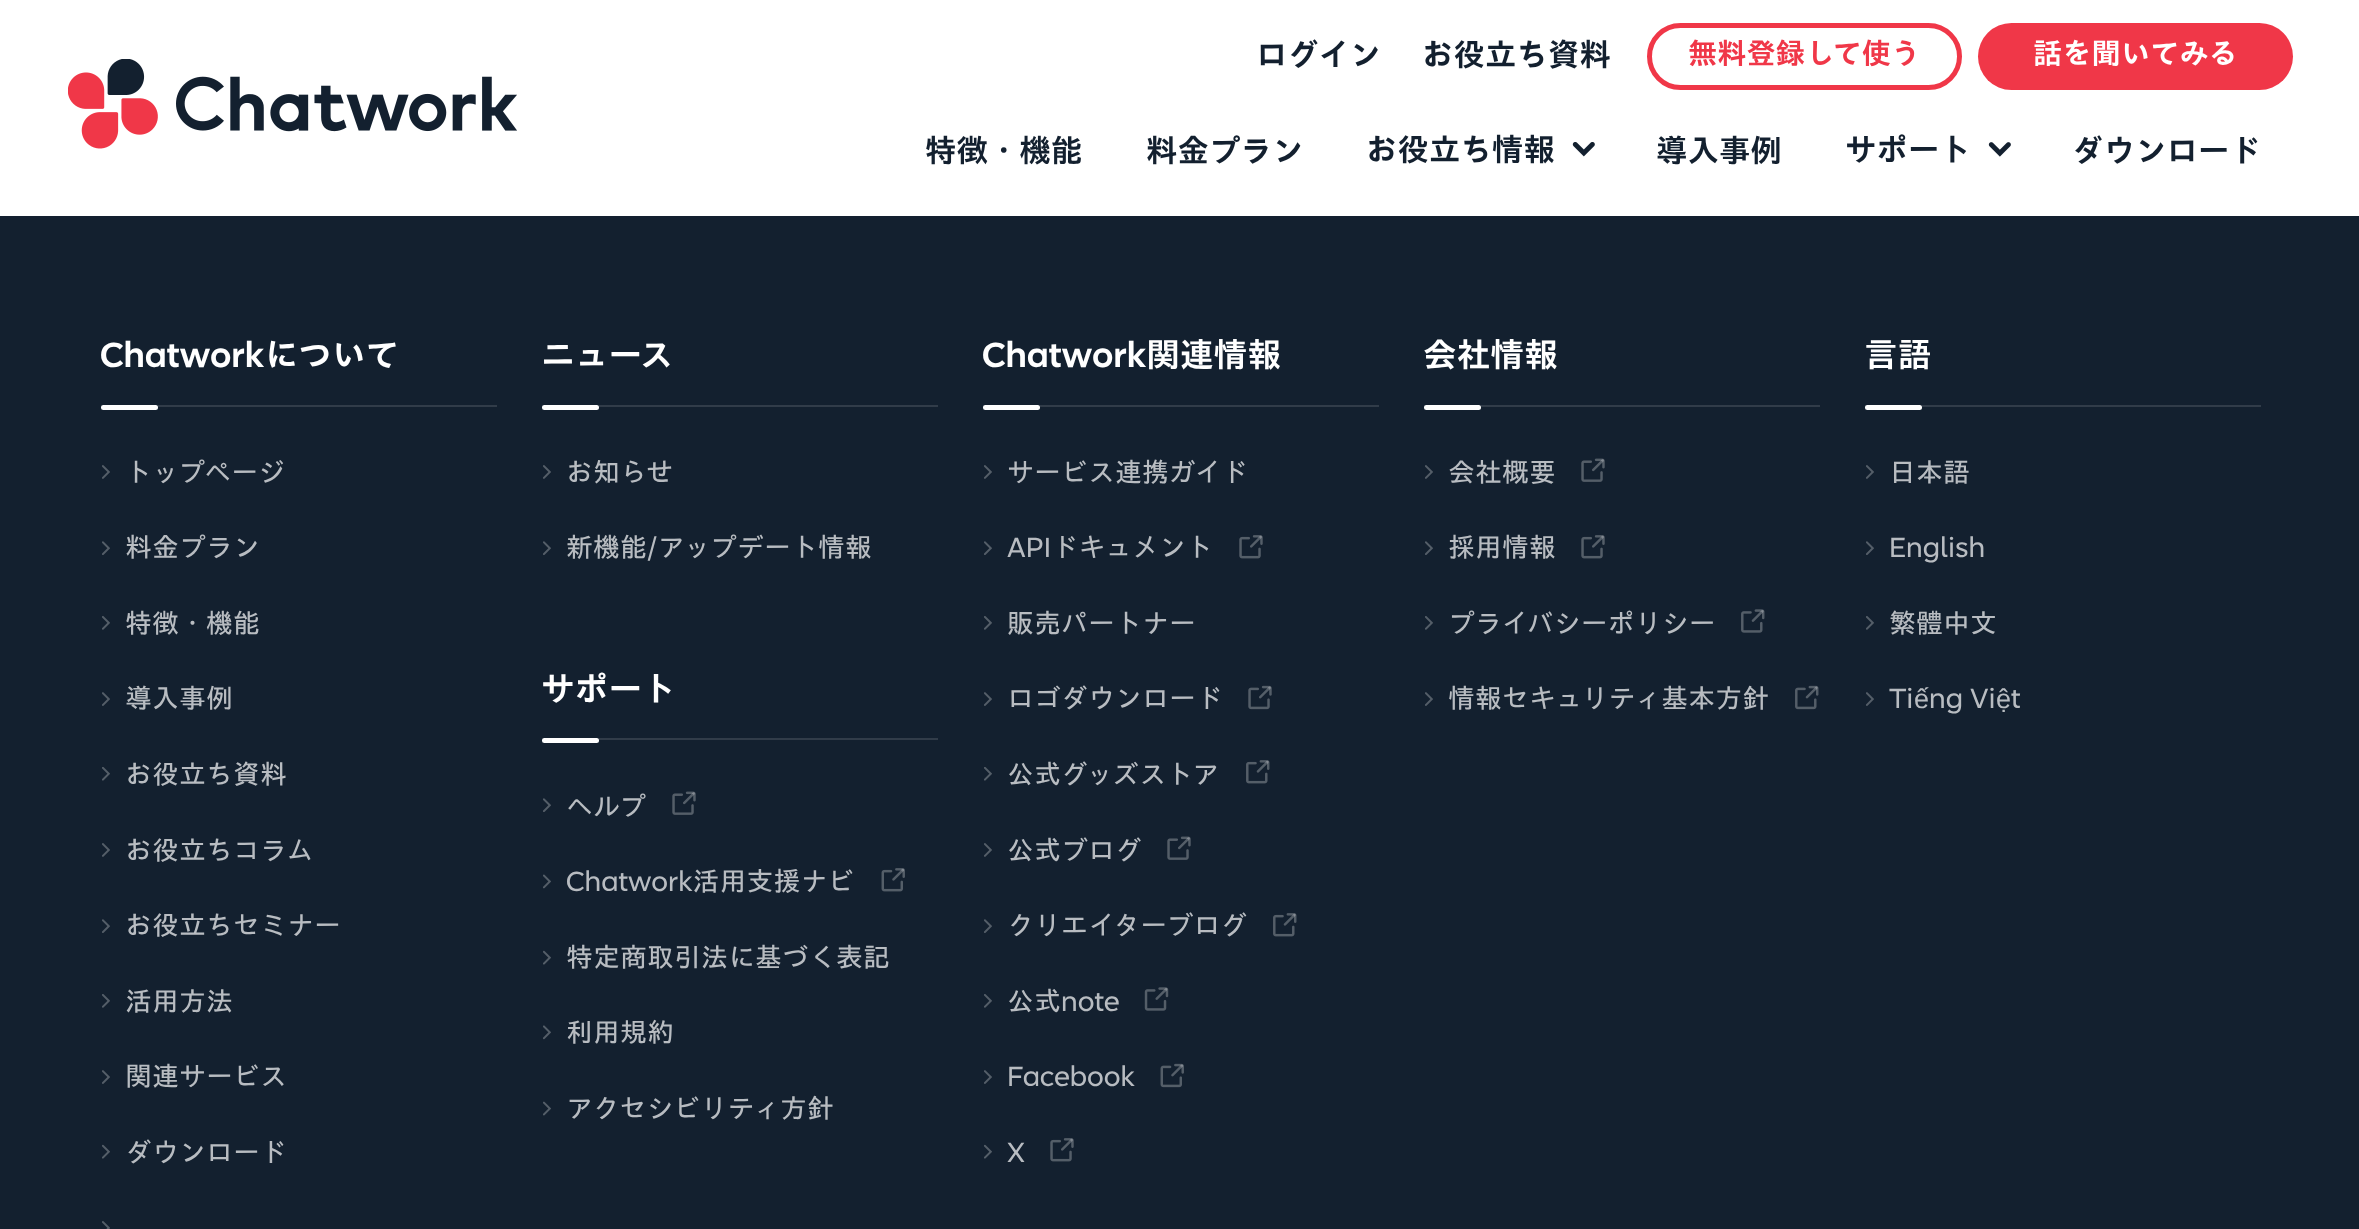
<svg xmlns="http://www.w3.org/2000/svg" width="2359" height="1229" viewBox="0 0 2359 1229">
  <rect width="100%" height="100%" fill="#13202f"/>
  <path d="M0 0h2359v216H0z" fill="#fff"/>
  <image x="68" y="59" width="449" height="90" href="img/1.png"/>
  <rect x="1649.5" y="25.5" width="310" height="62" rx="31" fill="none" stroke="#f03748" stroke-width="5"/>
  <rect x="1978" y="23" width="315" height="67" rx="33.5" fill="#f03748"/>
  <image x="1572" y="142" width="23" height="15" href="img/2.png"/>
  <image x="1988" y="142" width="23" height="15" href="img/3.png"/>
  <path d="M101 405h396v2H101z" fill="#313c49"/>
  <rect x="101" y="405" width="57" height="5" rx="2.5" fill="#fff"/>
  <image x="102" y="465" width="8" height="14" href="img/4.png"/>
  <image x="102" y="541" width="8" height="14" href="img/5.png"/>
  <image x="102" y="616" width="8" height="14" href="img/6.png"/>
  <image x="102" y="692" width="8" height="14" href="img/7.png"/>
  <image x="102" y="767" width="8" height="14" href="img/8.png"/>
  <image x="102" y="843" width="8" height="14" href="img/9.png"/>
  <image x="102" y="919" width="8" height="14" href="img/10.png"/>
  <image x="102" y="994" width="8" height="14" href="img/11.png"/>
  <image x="102" y="1070" width="8" height="14" href="img/12.png"/>
  <image x="102" y="1144" width="8" height="15" href="img/13.png"/>
  <image x="102" y="1221" width="8" height="8" href="img/14.png"/>
  <path d="M542 405h396v2H542z" fill="#313c49"/>
  <rect x="542" y="405" width="57" height="5" rx="2.5" fill="#fff"/>
  <image x="543" y="465" width="8" height="14" href="img/4.png"/>
  <image x="543" y="541" width="8" height="14" href="img/5.png"/>
  <path d="M983 405h396v2H983z" fill="#313c49"/>
  <rect x="983" y="405" width="57" height="5" rx="2.5" fill="#fff"/>
  <image x="984" y="465" width="8" height="14" href="img/4.png"/>
  <image x="984" y="541" width="8" height="14" href="img/5.png"/>
  <image x="1239" y="535" width="24" height="24" href="img/15.png"/>
  <image x="984" y="616" width="8" height="14" href="img/6.png"/>
  <image x="984" y="692" width="8" height="14" href="img/7.png"/>
  <image x="1248" y="685" width="24" height="25" href="img/16.png"/>
  <image x="984" y="767" width="8" height="14" href="img/8.png"/>
  <image x="1246" y="760" width="24" height="24" href="img/17.png"/>
  <image x="984" y="843" width="8" height="14" href="img/9.png"/>
  <image x="1167" y="836" width="24" height="24" href="img/18.png"/>
  <image x="984" y="919" width="8" height="14" href="img/10.png"/>
  <image x="1273" y="913" width="24" height="24" href="img/17.png"/>
  <image x="984" y="994" width="8" height="14" href="img/11.png"/>
  <image x="1144" y="987" width="25" height="24" href="img/19.png"/>
  <image x="984" y="1070" width="8" height="14" href="img/12.png"/>
  <image x="1160" y="1063" width="24" height="25" href="img/20.png"/>
  <image x="984" y="1144" width="8" height="15" href="img/13.png"/>
  <image x="1050" y="1138" width="24" height="24" href="img/15.png"/>
  <path d="M1424 405h396v2H1424z" fill="#313c49"/>
  <rect x="1424" y="405" width="57" height="5" rx="2.5" fill="#fff"/>
  <image x="1425" y="465" width="8" height="14" href="img/4.png"/>
  <image x="1581" y="458" width="24" height="24" href="img/18.png"/>
  <image x="1425" y="541" width="8" height="14" href="img/5.png"/>
  <image x="1581" y="535" width="24" height="24" href="img/15.png"/>
  <image x="1425" y="616" width="8" height="14" href="img/6.png"/>
  <image x="1741" y="609" width="24" height="24" href="img/21.png"/>
  <image x="1425" y="692" width="8" height="14" href="img/7.png"/>
  <image x="1795" y="685" width="24" height="25" href="img/22.png"/>
  <path d="M1865 405h396v2H1865z" fill="#313c49"/>
  <rect x="1865" y="405" width="57" height="5" rx="2.5" fill="#fff"/>
  <image x="1866" y="465" width="8" height="14" href="img/4.png"/>
  <image x="1866" y="541" width="8" height="14" href="img/5.png"/>
  <image x="1866" y="616" width="8" height="14" href="img/6.png"/>
  <image x="1866" y="692" width="8" height="14" href="img/7.png"/>
  <path d="M542 738h396v2H542z" fill="#313c49"/>
  <rect x="542" y="738" width="57" height="5" rx="2.5" fill="#fff"/>
  <image x="543" y="798" width="8" height="14" href="img/23.png"/>
  <image x="672" y="791" width="24" height="24" href="img/18.png"/>
  <image x="543" y="874" width="8" height="15" href="img/24.png"/>
  <image x="881" y="868" width="24" height="24" href="img/25.png"/>
  <image x="543" y="950" width="8" height="15" href="img/26.png"/>
  <image x="543" y="1025" width="8" height="15" href="img/27.png"/>
  <image x="543" y="1101" width="8" height="15" href="img/28.png"/>
  <g font-family="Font" font-size="31.5" font-weight="bold" fill="#13202f">
    <text x="1256" y="66">ログイン</text>
    <text x="1422" y="66">お役立ち資料</text>
  </g>
  <text x="1688" y="64" font-family="Font" font-size="29.25" font-weight="bold" fill="#f03748">無料登録して使う</text>
  <text x="2033" y="64" font-family="Font" font-size="29.25" font-weight="bold" fill="#fff">話を聞いてみる</text>
  <g font-family="Font" font-size="31.5" font-weight="bold" fill="#13202f">
    <text x="925" y="162">特徴・機能</text>
    <text x="1146" y="162">料金プラン</text>
    <text x="1366" y="161">お役立ち情報</text>
    <text x="1656" y="162">導入事例</text>
    <text x="1845" y="161">サポート</text>
    <text x="2072" y="162">ダウンロード</text>
  </g>
  <text x="100" y="367" font-family="Font" font-size="33.75" font-weight="bold" fill="#fff">Chatworkについて</text>
  <g font-family="Font" font-size="27" fill="#b8bcc1">
    <text x="125" y="482">トップページ</text>
    <text x="125" y="557">料金プラン</text>
    <text x="125" y="633">特徴・機能</text>
    <text x="125" y="708">導入事例</text>
    <text x="125" y="784">お役立ち資料</text>
    <text x="125" y="860">お役立ちコラム</text>
    <text x="125" y="935">お役立ちセミナー</text>
    <text x="125" y="1011">活用方法</text>
    <text x="125" y="1086">関連サービス</text>
    <text x="125" y="1162">ダウンロード</text>
  </g>
  <text x="541" y="367" font-family="Font" font-size="33.75" font-weight="bold" fill="#fff">ニュース</text>
  <g font-family="Font" font-size="27" fill="#b8bcc1">
    <text x="566" y="482">お知らせ</text>
    <text x="566" y="557">新機能/アップデート情報</text>
  </g>
  <text x="982" y="367" font-family="Font" font-size="33.75" font-weight="bold" fill="#fff">Chatwork関連情報</text>
  <g font-family="Font" font-size="27" fill="#b8bcc1">
    <text x="1007" y="482">サービス連携ガイド</text>
    <text x="1007" y="557">APIドキュメント</text>
    <text x="1007" y="633">販売パートナー</text>
    <text x="1007" y="708">ロゴダウンロード</text>
    <text x="1007" y="784">公式グッズストア</text>
    <text x="1007" y="860">公式ブログ</text>
    <text x="1007" y="935">クリエイターブログ</text>
    <text x="1007" y="1011">公式note</text>
    <text x="1007" y="1086">Facebook</text>
    <text x="1007" y="1162">X</text>
  </g>
  <text x="1423" y="367" font-family="Font" font-size="33.75" font-weight="bold" fill="#fff">会社情報</text>
  <g font-family="Font" font-size="27" fill="#b8bcc1">
    <text x="1448" y="482">会社概要</text>
    <text x="1448" y="557">採用情報</text>
    <text x="1448" y="633">プライバシーポリシー</text>
    <text x="1448" y="708">情報セキュリティ基本方針</text>
  </g>
  <text x="1864" y="367" font-family="Font" font-size="33.75" font-weight="bold" fill="#fff">言語</text>
  <g font-family="Font" font-size="27" fill="#b8bcc1">
    <text x="1889" y="482">日本語</text>
    <text x="1889" y="557">English</text>
    <text x="1889" y="633">繁體中文</text>
    <text x="1889" y="708">Ti</text>
  </g>
  <text x="1914" y="708" font-family="Liberation Sans" font-size="27" fill="#b8bcc1">ế</text>
  <text x="1929" y="708" font-family="Font" font-size="27" fill="#b8bcc1">ng Vi</text>
  <text x="1996" y="708" font-family="Liberation Sans" font-size="27" fill="#b8bcc1">ệ</text>
  <text x="2011" y="708" font-family="Font" font-size="27" fill="#b8bcc1">t</text>
  <text x="541" y="701" font-family="Font" font-size="33.75" font-weight="bold" fill="#fff">サポート</text>
  <g font-family="Font" font-size="27" fill="#b8bcc1">
    <text x="566" y="816">ヘルプ</text>
    <text x="566" y="891">Chatwork活用支援ナビ</text>
    <text x="566" y="967">特定商取引法に基づく表記</text>
    <text x="566" y="1042">利用規約</text>
    <text x="566" y="1118">アクセシビリティ方針</text>
  </g>
</svg>
